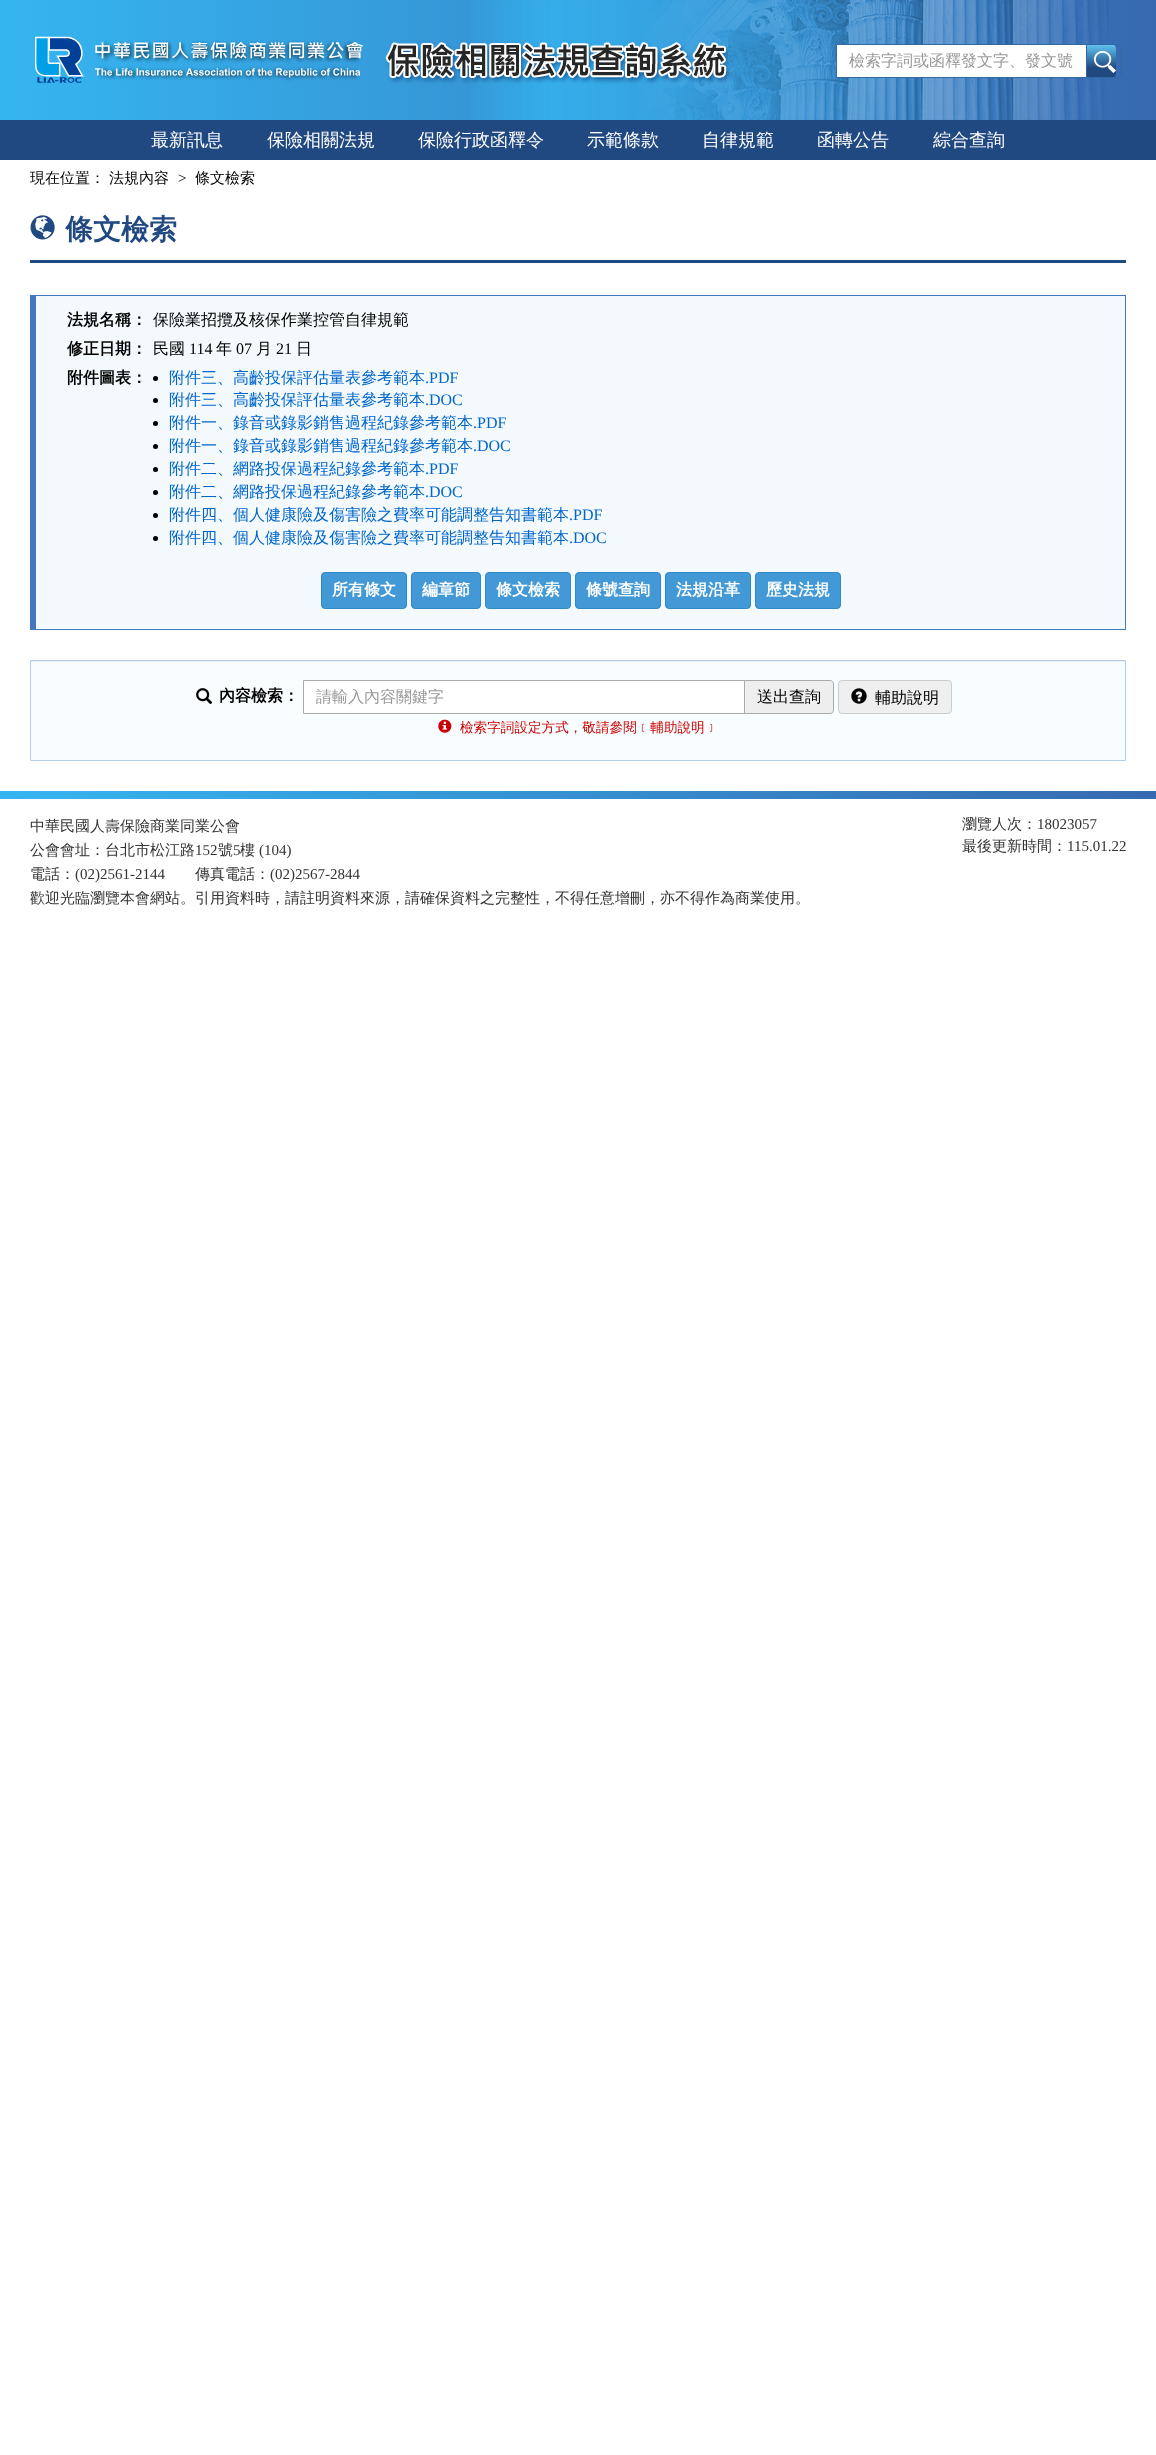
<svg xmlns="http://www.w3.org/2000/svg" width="1156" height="2455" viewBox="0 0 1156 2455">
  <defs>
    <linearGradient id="g1" gradientUnits="userSpaceOnUse" x1="0" y1="60" x2="1156" y2="60"><stop offset="0.01" stop-color="#35b5f0"/><stop offset="1" stop-color="#3769b0"/></linearGradient>
    <linearGradient id="g2" gradientUnits="userSpaceOnUse" x1="1098" y1="44" x2="1098" y2="78"><stop offset="0.02" stop-color="#62c3f0"/><stop offset="0.7" stop-color="#204881"/></linearGradient>
    <linearGradient id="g3" gradientUnits="userSpaceOnUse" x1="0" y1="795" x2="1156" y2="795"><stop offset="0.01" stop-color="#35b5f0"/><stop offset="1" stop-color="#3769b0"/></linearGradient>
  </defs>
  <rect width="100%" height="100%" fill="#fff"/>
  <path d="M0 0h1156v120H0z" fill="url(#g1)"/>
  <image x="471" y="0" width="638" height="120" href="img/1.png"/>
  <image x="35" y="36" width="328" height="47" href="img/2.png"/>
  <image x="385" y="42" width="346" height="42" href="img/3.png"/>
  <path d="M1080 44H1111C1114 44 1116 46 1116 49V73C1116 76 1114 78 1111 78H1080Z" fill="url(#g2)"/>
  <path d="M836.5 44.5h250v33H836.5z" fill="#fff" stroke="#326aa0"/>
  <image x="1094" y="51" width="22" height="22" href="img/4.png"/>
  <path d="M1086.5 44.5H1118C1120 44.5 1121.5 46 1121.5 48V74C1121.5 76 1120 77.5 1118 77.5H1086.5Z" fill="none" stroke="#326aa0"/>
  <path d="M0 120h1156v40H0z" fill="#204981"/>
  <path d="M30 260h1096v3H30z" fill="#204881"/>
  <image x="30" y="215" width="25" height="25" href="img/5.png"/>
  <path d="M36 296h1089v333H36z" fill="#f3f9fc"/>
  <path d="M30 295h1096v1H30z" fill="#4377be"/>
  <path d="M1125 295h1v335H1125z" fill="#4377be"/>
  <path d="M30 629h1096v1H30z" fill="#4377be"/>
  <path d="M30 295h6v335H30z" fill="#4377be"/>
  <circle cx="155.5" cy="378.5" r="2.5" fill="#000"/>
  <circle cx="155.5" cy="400.5" r="2.5" fill="#000"/>
  <circle cx="155.5" cy="423.5" r="2.5" fill="#000"/>
  <circle cx="155.5" cy="446.5" r="2.5" fill="#000"/>
  <circle cx="155.5" cy="469.5" r="2.5" fill="#000"/>
  <circle cx="155.5" cy="492.5" r="2.5" fill="#000"/>
  <circle cx="155.5" cy="515.5" r="2.5" fill="#000"/>
  <circle cx="155.5" cy="538.5" r="2.5" fill="#000"/>
  <rect x="321.5" y="572.5" width="85" height="36" rx="3.5" fill="#4399d5" stroke="#3089c7"/>
  <rect x="411.5" y="572.5" width="69" height="36" rx="3.5" fill="#4399d5" stroke="#3089c7"/>
  <rect x="485.5" y="572.5" width="85" height="36" rx="3.5" fill="#4399d5" stroke="#3089c7"/>
  <rect x="575.5" y="572.5" width="85" height="36" rx="3.5" fill="#4399d5" stroke="#3089c7"/>
  <rect x="665.5" y="572.5" width="85" height="36" rx="3.5" fill="#4399d5" stroke="#3089c7"/>
  <rect x="755.5" y="572.5" width="85" height="36" rx="3.5" fill="#4399d5" stroke="#3089c7"/>
  <path d="M31 662h1094v98H31z" fill="#f8fdff"/>
  <path d="M31 661h1094v1H31z" fill="#ecf0f2"/>
  <path d="M30.5 660.5h1095v100H30.5z" fill="none" stroke="#b3cde6"/>
  <image x="196" y="688" width="17" height="17" href="img/6.png"/>
  <path d="M303.5 680.5h441v33H303.5z" fill="#fff" stroke="#aaa"/>
  <path d="M744.5 680.5H830C832 680.5 833.5 682 833.5 684V710C833.5 712 832 713.5 830 713.5H744.5Z" fill="#eee" stroke="#aaa"/>
  <rect x="838.5" y="680.5" width="113" height="33" rx="3.5" fill="#efefef" stroke="#ccc"/>
  <image x="851" y="688" width="16" height="16" href="img/7.png"/>
  <image x="438" y="719" width="14" height="14" href="img/8.png"/>
  <path d="M0 791h1156v8H0z" fill="url(#g3)"/>
  <text x="849" y="66" font-family="WenQuanYi Zen Hei" font-size="16" font-weight="500" fill="#999">檢索字詞或函釋發文字、發文號</text>
  <g font-family="WenQuanYi Zen Hei" font-size="18" font-weight="500" fill="#fff">
    <text x="151" y="146">最新訊息</text>
    <text x="267" y="146">保險相關法規</text>
    <text x="418" y="146">保險行政函釋令</text>
    <text x="587" y="146">示範條款</text>
    <text x="702" y="146">自律規範</text>
    <text x="817" y="146">函轉公告</text>
    <text x="933" y="146">綜合查詢</text>
  </g>
  <g font-family="WenQuanYi Zen Hei" font-size="15" font-weight="500" fill="#000">
    <text x="30" y="183">現在位置：</text>
    <text x="109" y="183">法規內容</text>
  </g>
  <text x="178" y="183" font-family="Liberation Serif" font-size="15" fill="#000">&gt;</text>
  <text x="195" y="183" font-family="WenQuanYi Zen Hei" font-size="15" font-weight="500" fill="#000">條文檢索</text>
  <text x="65" y="239" font-family="WenQuanYi Zen Hei" font-size="28" font-weight="bold" fill="#204881">條文檢索</text>
  <text x="67" y="325" font-family="WenQuanYi Zen Hei" font-size="16" font-weight="bold" fill="#000">法規名稱：</text>
  <text x="153" y="325" font-family="WenQuanYi Zen Hei" font-size="16" font-weight="500" fill="#000">保險業招攬及核保作業控管自律規範</text>
  <text x="67" y="354" font-family="WenQuanYi Zen Hei" font-size="16" font-weight="bold" fill="#000">修正日期：</text>
  <text x="153" y="354" font-family="WenQuanYi Zen Hei" font-size="16" font-weight="500" fill="#000">民國</text>
  <text x="189" y="354" font-family="Liberation Serif" font-size="16" fill="#000">114</text>
  <text x="216" y="354" font-family="WenQuanYi Zen Hei" font-size="16" font-weight="500" fill="#000">年</text>
  <text x="236" y="354" font-family="Liberation Serif" font-size="16" fill="#000">07</text>
  <text x="256" y="354" font-family="WenQuanYi Zen Hei" font-size="16" font-weight="500" fill="#000">月</text>
  <text x="276" y="354" font-family="Liberation Serif" font-size="16" fill="#000">21</text>
  <text x="296" y="354" font-family="WenQuanYi Zen Hei" font-size="16" font-weight="500" fill="#000">日</text>
  <text x="67" y="383" font-family="WenQuanYi Zen Hei" font-size="16" font-weight="bold" fill="#000">附件圖表：</text>
  <text x="169" y="383" font-family="WenQuanYi Zen Hei" font-size="16" font-weight="500" fill="#06c">附件三、高齡投保評估量表參考範本</text>
  <text x="425" y="383" font-family="Liberation Serif" font-size="16" fill="#06c">.PDF</text>
  <text x="169" y="405" font-family="WenQuanYi Zen Hei" font-size="16" font-weight="500" fill="#06c">附件三、高齡投保評估量表參考範本</text>
  <text x="425" y="405" font-family="Liberation Serif" font-size="16" fill="#06c">.DOC</text>
  <text x="169" y="428" font-family="WenQuanYi Zen Hei" font-size="16" font-weight="500" fill="#06c">附件一、錄音或錄影銷售過程紀錄參考範本</text>
  <text x="473" y="428" font-family="Liberation Serif" font-size="16" fill="#06c">.PDF</text>
  <text x="169" y="451" font-family="WenQuanYi Zen Hei" font-size="16" font-weight="500" fill="#06c">附件一、錄音或錄影銷售過程紀錄參考範本</text>
  <text x="473" y="451" font-family="Liberation Serif" font-size="16" fill="#06c">.DOC</text>
  <text x="169" y="474" font-family="WenQuanYi Zen Hei" font-size="16" font-weight="500" fill="#06c">附件二、網路投保過程紀錄參考範本</text>
  <text x="425" y="474" font-family="Liberation Serif" font-size="16" fill="#06c">.PDF</text>
  <text x="169" y="497" font-family="WenQuanYi Zen Hei" font-size="16" font-weight="500" fill="#06c">附件二、網路投保過程紀錄參考範本</text>
  <text x="425" y="497" font-family="Liberation Serif" font-size="16" fill="#06c">.DOC</text>
  <text x="169" y="520" font-family="WenQuanYi Zen Hei" font-size="16" font-weight="500" fill="#06c">附件四、個人健康險及傷害險之費率可能調整告知書範本</text>
  <text x="569" y="520" font-family="Liberation Serif" font-size="16" fill="#06c">.PDF</text>
  <text x="169" y="543" font-family="WenQuanYi Zen Hei" font-size="16" font-weight="500" fill="#06c">附件四、個人健康險及傷害險之費率可能調整告知書範本</text>
  <text x="569" y="543" font-family="Liberation Serif" font-size="16" fill="#06c">.DOC</text>
  <g font-family="WenQuanYi Zen Hei" font-size="16" font-weight="bold" fill="#fff">
    <text x="332" y="595">所有條文</text>
    <text x="422" y="595">編章節</text>
    <text x="496" y="595">條文檢索</text>
    <text x="586" y="595">條號查詢</text>
    <text x="676" y="595">法規沿革</text>
    <text x="766" y="595">歷史法規</text>
  </g>
  <text x="219" y="701" font-family="WenQuanYi Zen Hei" font-size="16" font-weight="bold" fill="#000">內容檢索：</text>
  <text x="316" y="702" font-family="WenQuanYi Zen Hei" font-size="16" font-weight="500" fill="#999">請輸入內容關鍵字</text>
  <g font-family="WenQuanYi Zen Hei" font-size="16" font-weight="500" fill="#000">
    <text x="757" y="702">送出查詢</text>
    <text x="875" y="703">輔助說明</text>
  </g>
  <text x="460" y="732" font-family="WenQuanYi Zen Hei" font-size="13.6" font-weight="500" fill="#c00">檢索字詞設定方式，敬請參閱﹝輔助說明﹞</text>
  <g font-family="WenQuanYi Zen Hei" font-size="15" font-weight="500" fill="#333">
    <text x="30" y="831">中華民國人壽保險商業同業公會</text>
    <text x="30" y="855">公會會址：台北市松江路</text>
  </g>
  <text x="195" y="855" font-family="Liberation Serif" font-size="15" fill="#333">152</text>
  <text x="218" y="855" font-family="WenQuanYi Zen Hei" font-size="15" font-weight="500" fill="#333">號</text>
  <text x="233" y="855" font-family="Liberation Serif" font-size="15" fill="#333">5</text>
  <text x="240" y="855" font-family="WenQuanYi Zen Hei" font-size="15" font-weight="500" fill="#333">樓</text>
  <text x="259" y="855" font-family="Liberation Serif" font-size="15" fill="#333">(104)</text>
  <text x="30" y="879" font-family="WenQuanYi Zen Hei" font-size="15" font-weight="500" fill="#333">電話：</text>
  <text x="75" y="879" font-family="Liberation Serif" font-size="15" fill="#333">(02)2561-2144</text>
  <text x="195" y="879" font-family="WenQuanYi Zen Hei" font-size="15" font-weight="500" fill="#333">傳真電話：</text>
  <text x="270" y="879" font-family="Liberation Serif" font-size="15" fill="#333">(02)2567-2844</text>
  <g font-family="WenQuanYi Zen Hei" font-size="15" font-weight="500" fill="#333">
    <text x="30" y="903">歡迎光臨瀏覽本會網站。引用資料時，請註明資料來源，請確保資料之完整性，不得任意增刪，亦不得作為商業使用。</text>
    <text x="962" y="829">瀏覽人次：</text>
  </g>
  <text x="1037" y="829" font-family="Liberation Serif" font-size="15" fill="#333">18023057</text>
  <text x="962" y="851" font-family="WenQuanYi Zen Hei" font-size="15" font-weight="500" fill="#333">最後更新時間：</text>
  <text x="1067" y="851" font-family="Liberation Serif" font-size="15" fill="#333">115.01.22</text>
</svg>
